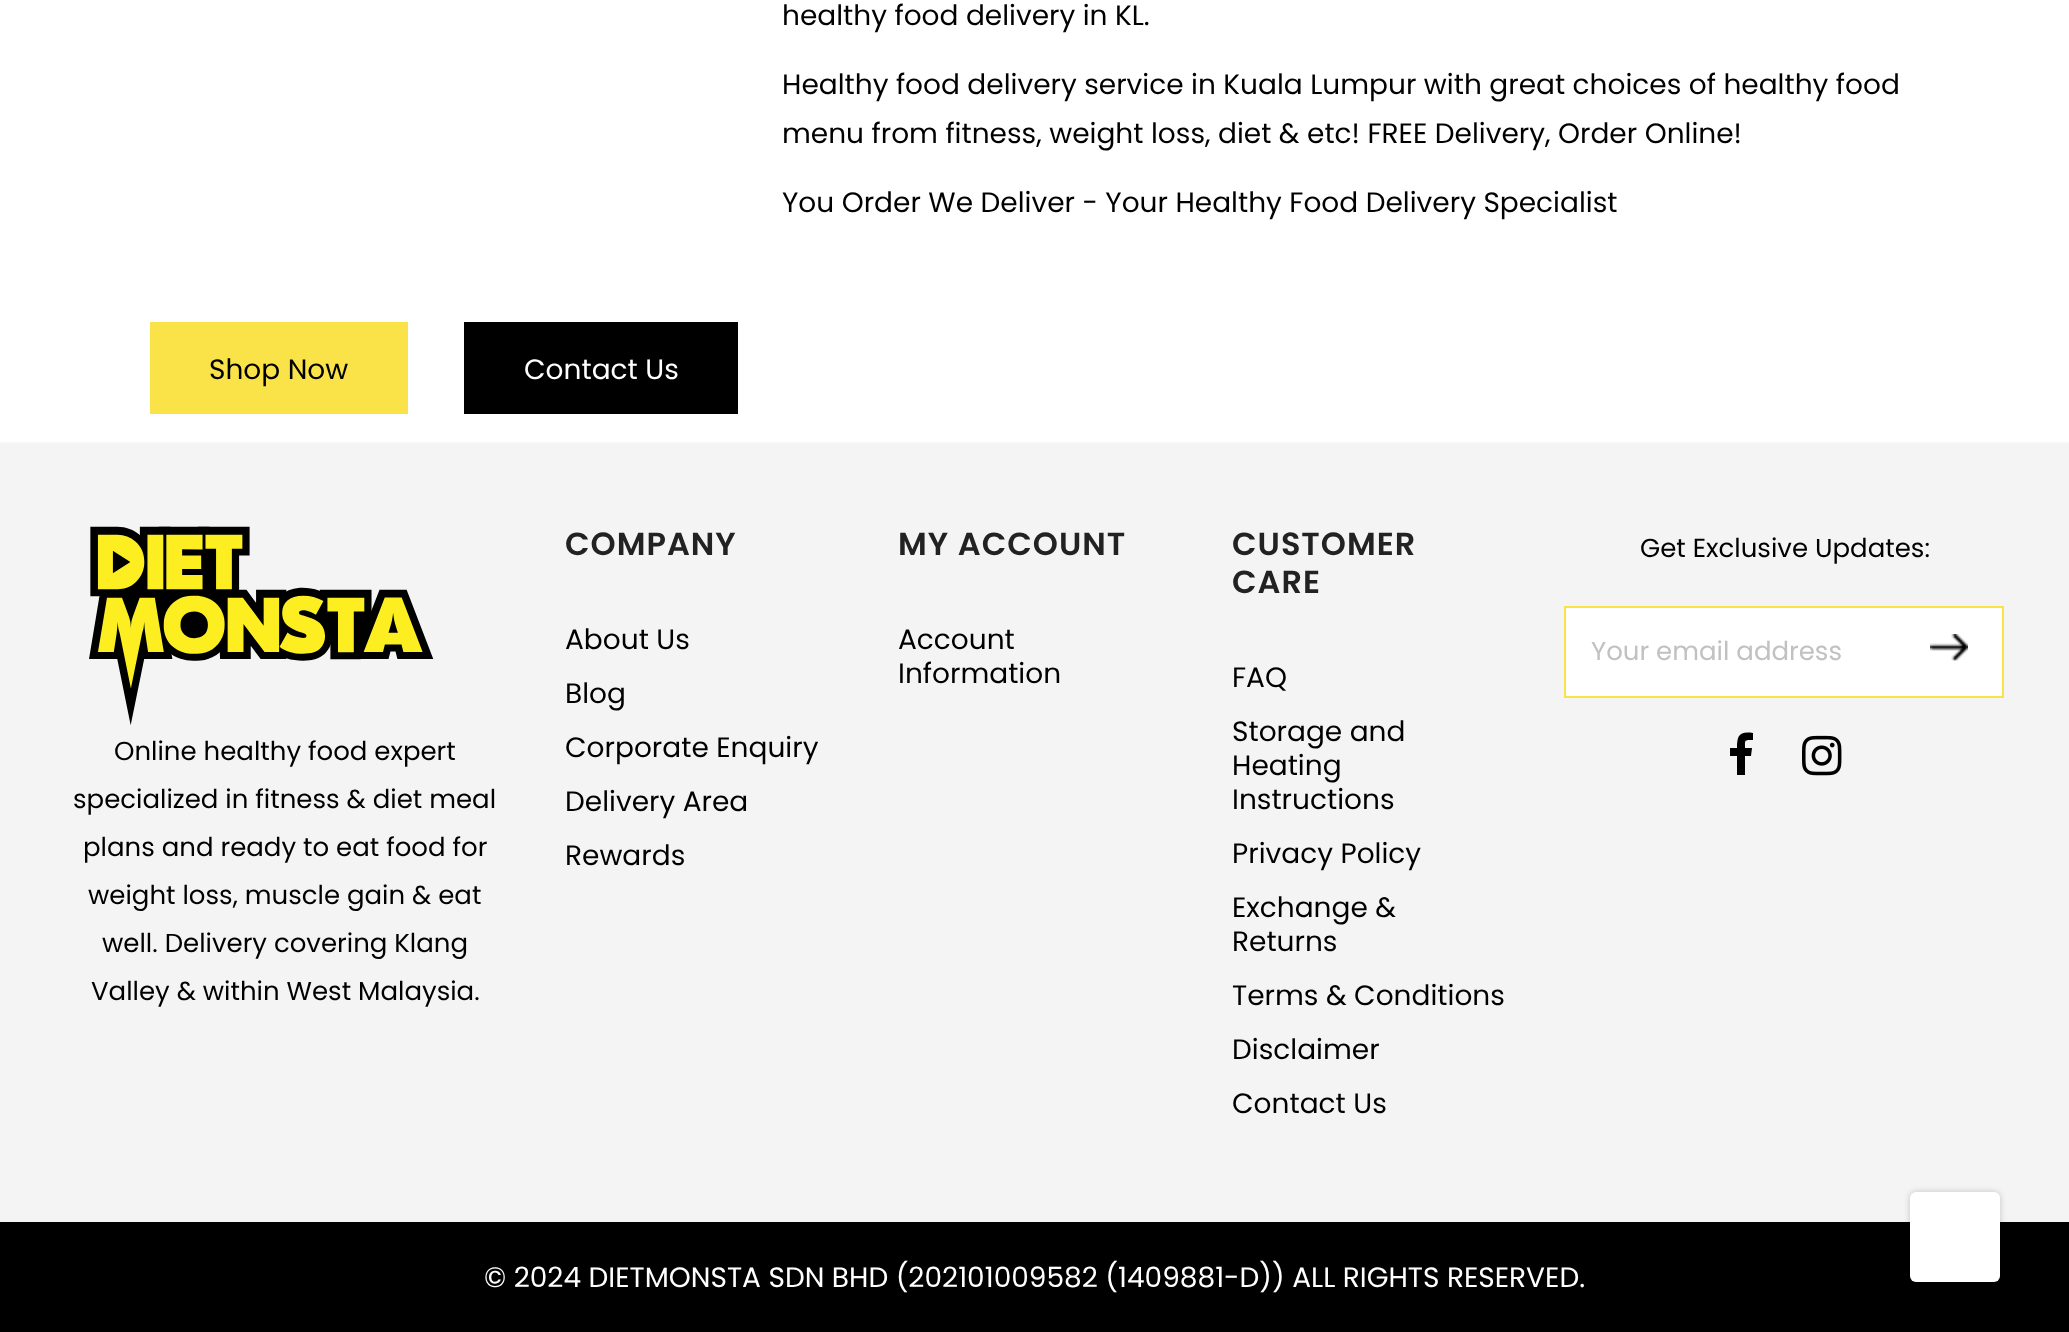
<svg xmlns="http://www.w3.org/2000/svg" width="2069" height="1332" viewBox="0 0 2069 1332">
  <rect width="100%" height="100%" fill="#fff"/>
  <path d="M150 322h258v92H150z" fill="#f9e349"/>
  <path d="M464 322h274v92H464z" fill="#000"/>
  <path d="M0 444h2069v778H0z" fill="#f4f4f4"/>
  <path d="M0 442h2069v2H0z" fill="#f6f6f8"/>
  <path d="M1565 607h438v90H1565z" fill="#fff" stroke="#f9e349" stroke-width="2"/>
  <image x="1930" y="634" width="38" height="27" href="img/1.png"/>
  <path d="M1753 733C1739 731 1737 736 1737 748H1730V756H1737V775H1745V756H1751L1752 748H1745C1745 740 1744 740 1753 740Z" fill="#000"/>
  <image x="1802" y="735" width="40" height="41" href="img/2.png"/>
  <image x="89" y="526" width="345" height="199" href="img/3.png"/>
  <path d="M0 1222h2069v110H0z" fill="#000"/>
  <rect x="1910" y="1192" width="90" height="90" rx="6" fill="#00000033" filter="blur(3px)"/>
  <rect x="1910" y="1192" width="90" height="90" rx="6" fill="#fff"/>
  <g font-family="Poppins" font-size="28" fill="#000">
    <text x="782" y="25">healthy food delivery in KL.</text>
    <text x="782" y="94">Healthy food delivery service in Kuala Lumpur with great choices of healthy food</text>
    <text x="782" y="143">menu from fitness, weight loss, diet &amp; etc! FREE Delivery, Order Online!</text>
    <text x="782" y="212">You Order We Deliver - Your Healthy Food Delivery Specialist</text>
    <text x="209" y="379">Shop Now</text>
  </g>
  <text x="524" y="379" font-family="Poppins" font-size="28" fill="#fff">Contact Us</text>
  <text x="565" y="555" font-family="Poppins" font-size="32" font-weight="600" letter-spacing="1" fill="#222">COMPANY</text>
  <g font-family="Poppins" font-size="28" fill="#000">
    <text x="565" y="649">About Us</text>
    <text x="565" y="703">Blog</text>
    <text x="565" y="757">Corporate Enquiry</text>
    <text x="565" y="811">Delivery Area</text>
    <text x="565" y="865">Rewards</text>
  </g>
  <text x="898" y="555" font-family="Poppins" font-size="32" font-weight="600" letter-spacing="1" fill="#222">MY ACCOUNT</text>
  <g font-family="Poppins" font-size="28" fill="#000">
    <text x="898" y="649">Account</text>
    <text x="898" y="683">Information</text>
  </g>
  <g font-family="Poppins" font-size="32" font-weight="600" letter-spacing="1" fill="#222">
    <text x="1232" y="555">CUSTOMER</text>
    <text x="1232" y="593">CARE</text>
  </g>
  <g font-family="Poppins" font-size="28" fill="#000">
    <text x="1232" y="687">FAQ</text>
    <text x="1232" y="741">Storage and</text>
    <text x="1232" y="775">Heating</text>
    <text x="1232" y="809">Instructions</text>
    <text x="1232" y="863">Privacy Policy</text>
    <text x="1232" y="917">Exchange &amp;</text>
    <text x="1232" y="951">Returns</text>
    <text x="1232" y="1005">Terms &amp; Conditions</text>
    <text x="1232" y="1059">Disclaimer</text>
    <text x="1232" y="1113">Contact Us</text>
  </g>
  <text x="1640" y="557" font-family="Poppins" font-size="26" fill="#000">Get Exclusive Updates:</text>
  <text x="1591" y="660" font-family="Poppins" font-size="26" fill="#c1c1c1">Your email address</text>
  <g font-family="Poppins" font-size="26" fill="#000">
    <text x="114" y="760">Online healthy food expert</text>
    <text x="73" y="808">specialized in fitness &amp; diet meal</text>
    <text x="83" y="856">plans and ready to eat food for</text>
    <text x="88" y="904">weight loss, muscle gain &amp; eat</text>
    <text x="102" y="952">well. Delivery covering Klang</text>
    <text x="91" y="1000">Valley &amp; within West Malaysia.</text>
  </g>
  <text x="484" y="1287" font-family="Poppins" font-size="28" fill="#fff">© 2024 DIETMONSTA SDN BHD (202101009582 (1409881-D)) ALL RIGHTS RESERVED.</text>
</svg>
